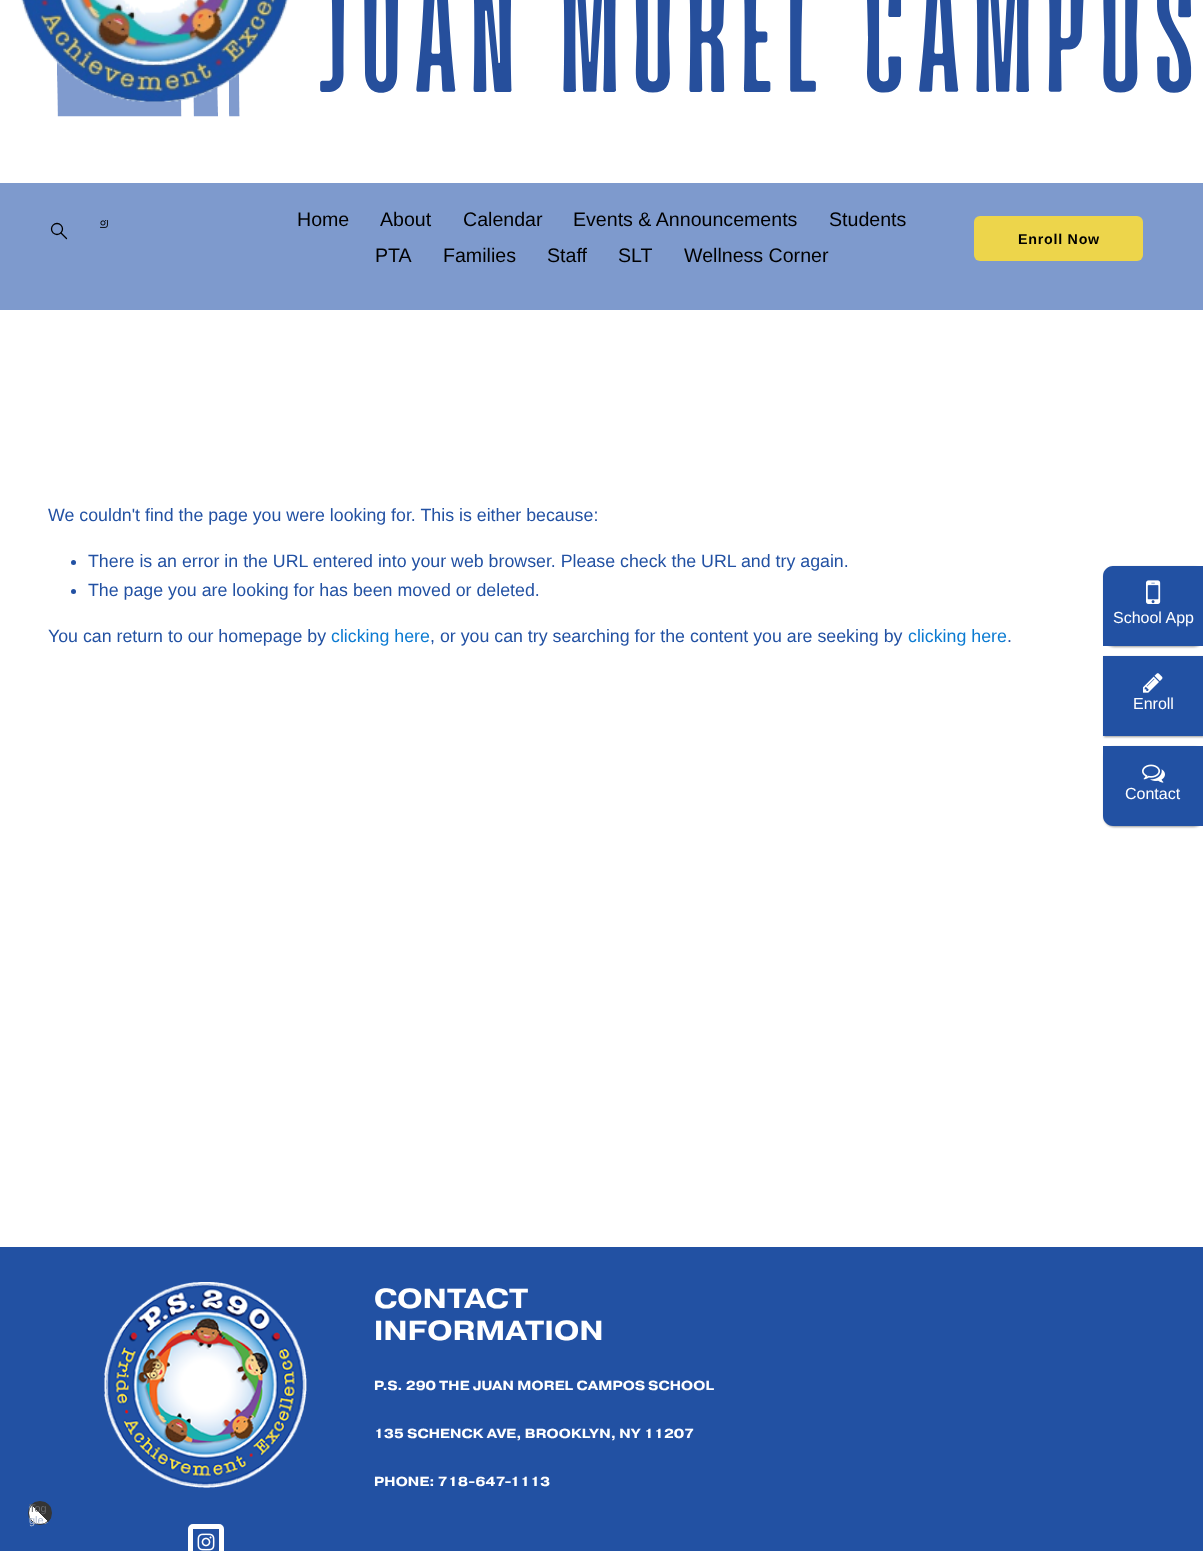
<svg xmlns="http://www.w3.org/2000/svg" width="1203" height="1551" viewBox="0 0 1203 1551">
  <defs>
    <clipPath id="clip1"><rect x="28" y="1501" width="24" height="24" rx="12"/></clipPath>
    <linearGradient id="g1" gradientUnits="userSpaceOnUse" x1="29" y1="1524" x2="51" y2="1502"><stop offset="0.5" stop-color="#fff"/><stop offset="0.5" stop-color="#353535"/></linearGradient>
  </defs>
  <rect width="100%" height="100%" fill="#fff"/>
  <image x="21" y="0" width="1171" height="117" href="img/1.png"/>
  <path d="M0 183h1203v127H0z" fill="#7e9acd"/>
  <path d="M61 233L66.5 238.5" fill="none" stroke="#000" stroke-width="1.3" stroke-linecap="round" stroke-linejoin="round"/>
  <circle cx="57" cy="229" r="5.5" fill="none" stroke="#000" stroke-width="1.3"/>
  <image x="100" y="220" width="8" height="8" href="img/2.png"/>
  <rect x="974" y="216" width="169" height="45" rx="6" fill="#edd54b"/>
  <circle cx="73.5" cy="562.5" r="2.5" fill="#2251a3"/>
  <circle cx="73.5" cy="591.5" r="2.5" fill="#2251a3"/>
  <path d="M0 1247h1203v304H0z" fill="#2251a3"/>
  <image x="104" y="1282" width="203" height="206" href="img/3.png"/>
  <rect x="190.5" y="1526.5" width="31" height="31" rx="2.5" fill="none" stroke="#fff" stroke-width="5"/>
  <image x="197" y="1533" width="18" height="18" href="img/4.png"/>
  <rect x="1104" y="567" width="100" height="80" rx="10" fill="#999" filter="blur(1px)"/>
  <path d="M1113 566H1203V646H1103V576C1103 570.5 1107.5 566 1113 566Z" fill="#2251a3"/>
  <image x="1146" y="580" width="15" height="24" href="img/5.png"/>
  <path d="M1104 657h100v80H1104z" fill="#999" filter="blur(1px)"/>
  <path d="M1103 656h100v80H1103z" fill="#2251a3"/>
  <image x="1143" y="673" width="20" height="20" href="img/6.png"/>
  <rect x="1104" y="747" width="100" height="80" rx="10" fill="#999" filter="blur(1px)"/>
  <path d="M1103 746H1203V826H1113C1107.5 826 1103 821.5 1103 816Z" fill="#2251a3"/>
  <image x="1142" y="764" width="23" height="19" href="img/7.png"/>
  <g clip-path="url(#clip1)">
    <path d="M29 1502h22v22H29z" fill="url(#g1)"/>
  </g>
  <circle cx="40" cy="1513" r="11.5" fill="none" stroke="#353535"/>
  <g font-family="Liberation Sans" font-size="19.6" fill="#000">
    <text x="297" y="226">Home</text>
    <text x="380" y="226">About</text>
    <text x="463" y="226">Calendar</text>
    <text x="573" y="226">Events &amp; Announcements</text>
    <text x="829" y="226">Students</text>
    <text x="375" y="262">PTA</text>
    <text x="443" y="262">Families</text>
    <text x="547" y="262">Staff</text>
    <text x="618" y="262">SLT</text>
    <text x="684" y="262">Wellness Corner</text>
  </g>
  <text x="1018" y="244" font-family="Liberation Sans" font-size="14.25" font-weight="bold" letter-spacing="0.75" fill="#000">Enroll Now</text>
  <g font-family="Liberation Sans" font-size="17.8" fill="#2251a3">
    <text x="48" y="521">We couldn't find the page you were looking for. This is either because:</text>
    <text x="88" y="567">There is an error in the URL entered into your web browser. Please check the URL and try again.</text>
    <text x="88" y="596">The page you are looking for has been moved or deleted.</text>
    <text x="48" y="642">You can return to our homepage by</text>
  </g>
  <text x="331" y="642" font-family="Liberation Sans" font-size="17.8" fill="#0b7bd2">clicking here</text>
  <text x="430" y="642" font-family="Liberation Sans" font-size="17.8" fill="#2251a3">, or you can try searching for the content you are seeking by</text>
  <text x="908" y="642" font-family="Liberation Sans" font-size="17.8" fill="#0b7bd2">clicking here</text>
  <text x="1007" y="642" font-family="Liberation Sans" font-size="17.8" fill="#2251a3">.</text>
  <g font-family="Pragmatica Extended" font-size="27.5" font-weight="bold" letter-spacing="0.25" fill="#fff">
    <text x="374" y="1308">CONTACT</text>
    <text x="374" y="1340">INFORMATION</text>
  </g>
  <g font-family="Pragmatica Extended" font-size="13.1" font-weight="bold" letter-spacing="0.15" fill="#fff">
    <text x="374" y="1390">P.S. 290 THE JUAN MOREL CAMPOS SCHOOL</text>
    <text x="374" y="1438">135 SCHENCK AVE, BROOKLYN, NY 11207</text>
    <text x="374" y="1486">PHONE: 718-647-1113</text>
  </g>
  <g font-family="Liberation Sans" font-size="16" fill="#fff">
    <text x="1113" y="623">School App</text>
    <text x="1133" y="709">Enroll</text>
    <text x="1125" y="799">Contact</text>
  </g>
  <text x="29" y="1512" font-family="Liberation Sans" font-size="11" fill="#66686c">Tog</text>
  <text x="29" y="1524" font-family="Liberation Sans" font-size="11" fill="#aebbd2">gle</text>
</svg>
